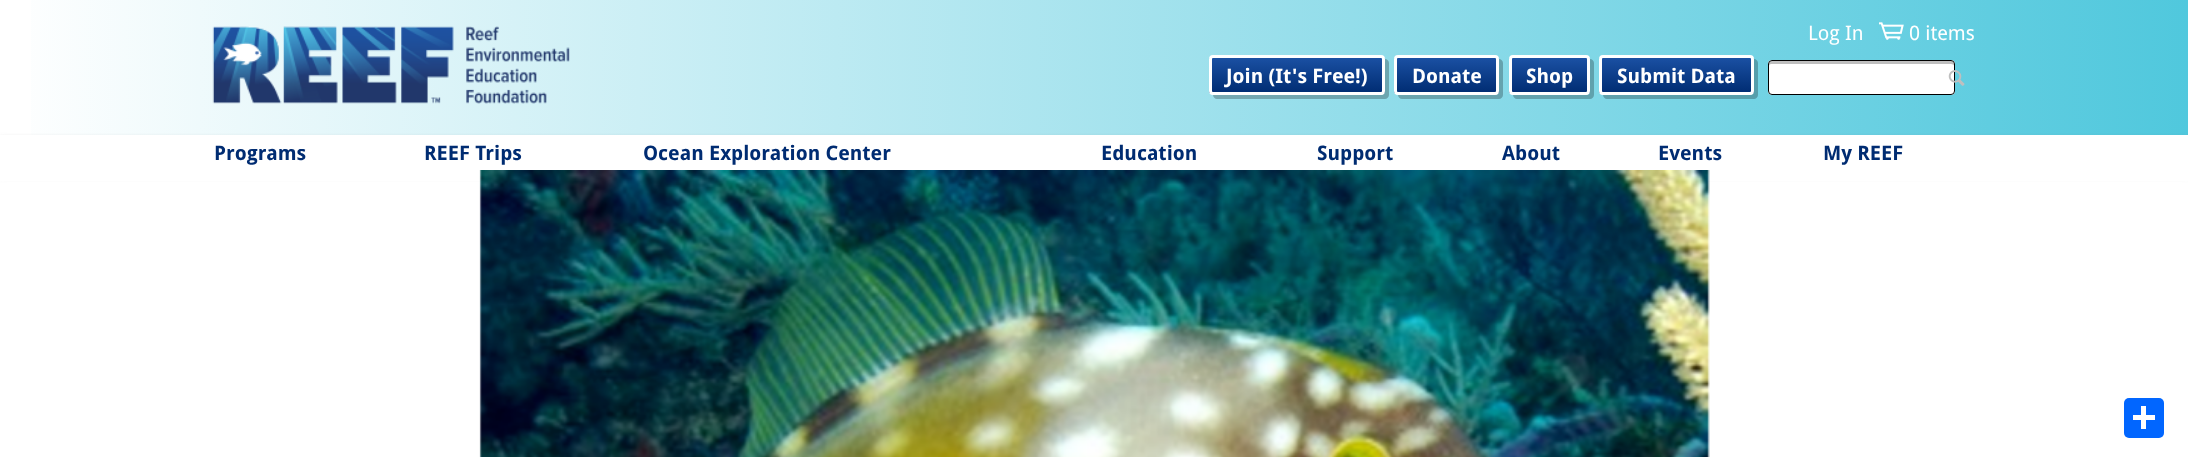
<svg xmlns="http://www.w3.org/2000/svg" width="2188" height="457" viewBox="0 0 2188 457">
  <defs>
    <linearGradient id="g1" gradientUnits="userSpaceOnUse" x1="0" y1="85" x2="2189" y2="85"><stop offset="0" stop-color="#fff"/><stop offset="1" stop-color="#50c8dd"/></linearGradient>
    <linearGradient id="g2" gradientUnits="userSpaceOnUse" x1="1297" y1="57" x2="1297" y2="93"><stop offset="0" stop-color="#1b51a4"/><stop offset="1" stop-color="#002c72"/></linearGradient>
    <linearGradient id="g3" gradientUnits="userSpaceOnUse" x1="1446" y1="57" x2="1446" y2="93"><stop offset="0" stop-color="#1b51a4"/><stop offset="1" stop-color="#002c72"/></linearGradient>
    <linearGradient id="g4" gradientUnits="userSpaceOnUse" x1="1549" y1="58" x2="1549" y2="93"><stop offset="0" stop-color="#1b51a4"/><stop offset="1" stop-color="#002c72"/></linearGradient>
    <linearGradient id="g5" gradientUnits="userSpaceOnUse" x1="1676" y1="57" x2="1676" y2="93"><stop offset="0" stop-color="#1b51a4"/><stop offset="1" stop-color="#002c72"/></linearGradient>
  </defs>
  <rect width="100%" height="100%" fill="#fff"/>
  <path d="M31 0h2157v135H31z" fill="url(#g1)"/>
  <image x="212" y="26" width="358" height="78" href="img/1.png"/>
  <image x="1879" y="22" width="25" height="18" href="img/2.png"/>
  <path d="M1213 95C1213 97 1215 99 1217 99H1385C1387 99 1389 97 1389 95V63C1389 61 1387 59 1385 59V91C1385 93 1383 95 1381 95Z" fill="#00000040"/>
  <path d="M1209 58h176v35H1209z" fill="url(#g2)"/>
  <rect x="1210.5" y="56.5" width="173" height="37" rx="2.5" fill="none" stroke="#fff" stroke-width="3"/>
  <path d="M1398 95C1398 97 1400 99 1402 99H1499C1501 99 1503 97 1503 95V63C1503 61 1501 59 1499 59V91C1499 93 1497 95 1495 95Z" fill="#00000040"/>
  <path d="M1394 58h105v35H1394z" fill="url(#g3)"/>
  <rect x="1395.5" y="56.5" width="102" height="37" rx="2.5" fill="none" stroke="#fff" stroke-width="3"/>
  <path d="M1513 95C1513 97 1515 99 1517 99H1590C1592 99 1594 97 1594 95V63C1594 61 1592 59 1590 59V91C1590 93 1588 95 1586 95Z" fill="#00000040"/>
  <path d="M1509 58h81v35H1509z" fill="url(#g4)"/>
  <rect x="1510.5" y="56.5" width="78" height="37" rx="2.5" fill="none" stroke="#fff" stroke-width="3"/>
  <path d="M1603 95C1603 97 1605 99 1607 99H1754C1756 99 1758 97 1758 95V63C1758 61 1756 59 1754 59V91C1754 93 1752 95 1750 95Z" fill="#00000040"/>
  <path d="M1599 58h155v35H1599z" fill="url(#g5)"/>
  <rect x="1600.5" y="56.5" width="152" height="37" rx="2.5" fill="none" stroke="#fff" stroke-width="3"/>
  <rect x="1768" y="60" width="187" height="35" rx="4" fill="#fff"/>
  <path d="M1771 64H1951C1953 64 1954 65 1954 66C1954 64 1954 62 1952 61H1772C1769 61 1769 64 1769 66C1769 65 1770 64 1771 64Z" fill="#bfbfbf"/>
  <rect x="1768.5" y="60.5" width="186" height="34" rx="3.5" fill="none" stroke="#000"/>
  <image x="1948" y="70" width="17" height="16" href="img/3.png"/>
  <path d="M0 140h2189v35H0z" fill="#808080" filter="blur(3px)"/>
  <path d="M0 135h2188v46H0z" fill="#fff"/>
  <image x="479" y="170" width="1231" height="287" href="img/4.png"/>
  <rect x="2124" y="398" width="40" height="40" rx="5" fill="#0166ff"/>
  <path d="M2141 406h5v23H2141z" fill="#fff"/>
  <path d="M2133 415h22v5H2133z" fill="#fff"/>
  <g font-family="Droid Sans" font-size="20" fill="#fff">
    <text x="1808" y="40">Log In</text>
    <text x="1909" y="40">0 items</text>
  </g>
  <g font-family="Droid Sans" font-size="20" font-weight="bold" fill="#fff">
    <text x="1226" y="83">Join (It's Free!)</text>
    <text x="1412" y="83">Donate</text>
    <text x="1526" y="83">Shop</text>
    <text x="1617" y="83">Submit Data</text>
  </g>
  <g font-family="Droid Sans" font-size="20" font-weight="bold" fill="#002c72">
    <text x="214" y="160">Programs</text>
    <text x="424" y="160">REEF Trips</text>
    <text x="643" y="160">Ocean Exploration Center</text>
    <text x="1101" y="160">Education</text>
    <text x="1317" y="160">Support</text>
    <text x="1502" y="160">About</text>
    <text x="1658" y="160">Events</text>
    <text x="1823" y="160">My REEF</text>
  </g>
</svg>
